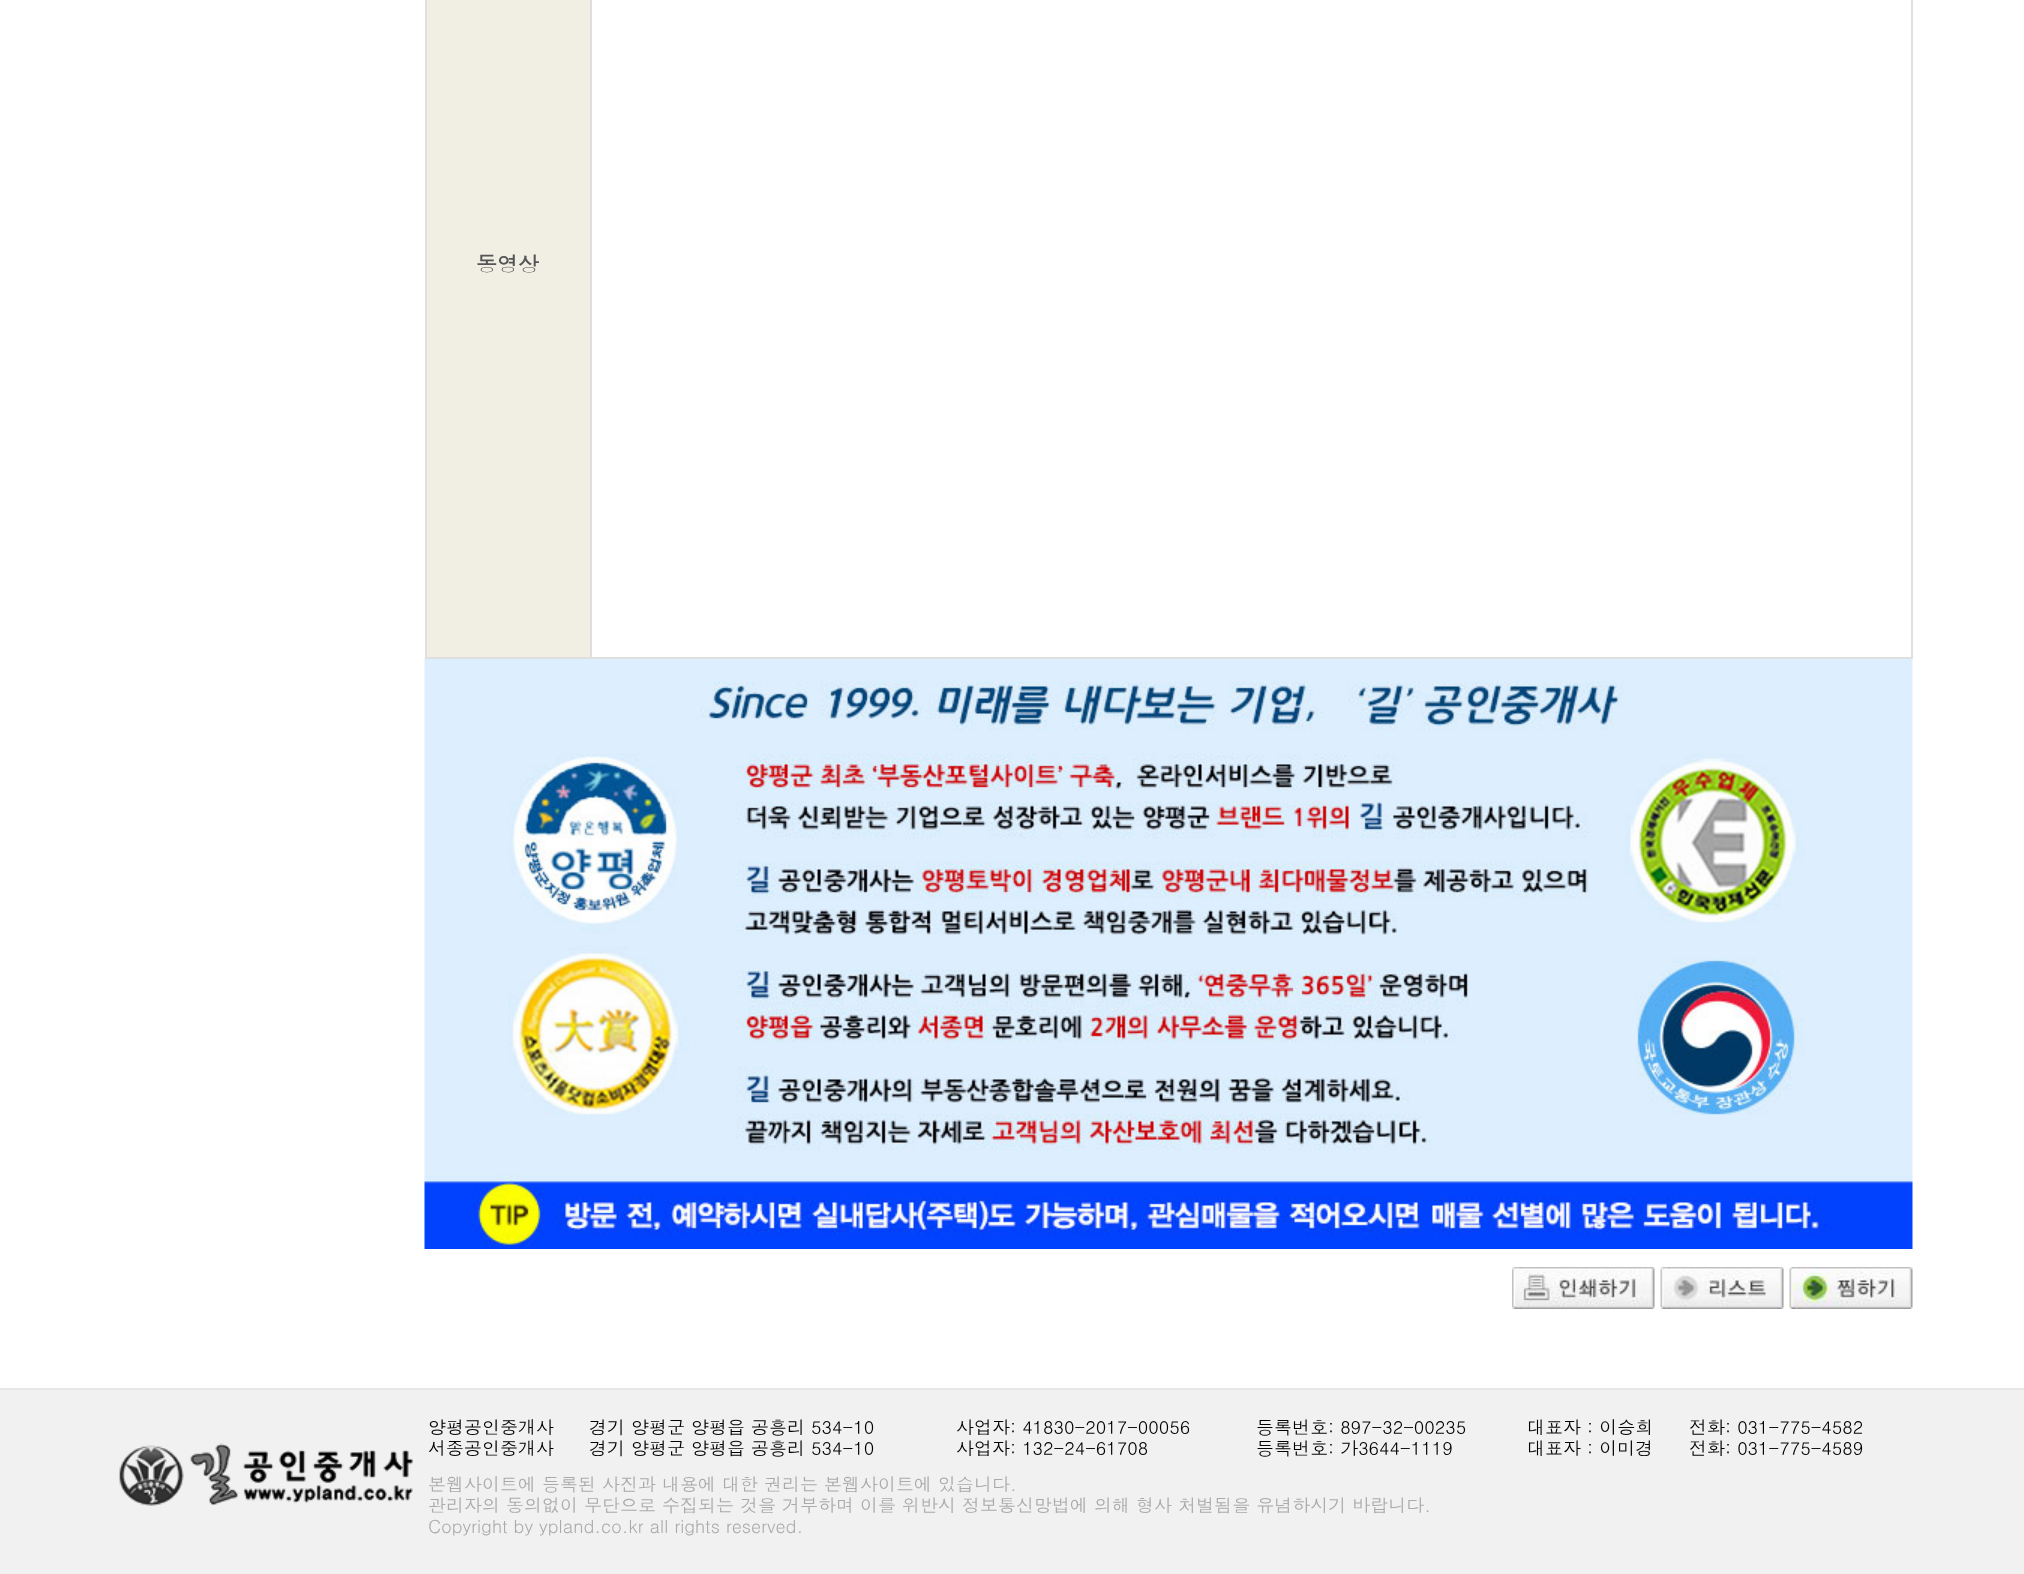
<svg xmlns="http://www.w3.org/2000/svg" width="2024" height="1574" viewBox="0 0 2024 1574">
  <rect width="100%" height="100%" fill="#fff"/>
  <image x="424" y="658" width="1489" height="591" href="img/1.png"/>
  <path d="M1911 0h2v659H1911z" fill="#e0dede"/>
  <path d="M425 657h1488v2H425z" fill="#e0dede"/>
  <path d="M425 0h2v659H425z" fill="#e0dede"/>
  <path d="M427 0h163v657H427z" fill="#f1eee4"/>
  <path d="M590 0h2v659H590z" fill="#e0dede"/>
  <image x="1512" y="1267" width="143" height="42" href="img/2.png"/>
  <image x="1660" y="1267" width="124" height="42" href="img/3.png"/>
  <image x="1789" y="1267" width="124" height="42" href="img/4.png"/>
  <path d="M0 1390h2024v184H0z" fill="#f1f1f1"/>
  <path d="M0 1388h2024v2H0z" fill="#e7e7e7"/>
  <image x="119" y="1443" width="294" height="63" href="img/5.png"/>
  <text x="476" y="272" font-family="Dotum" font-size="21" font-weight="bold" fill="#555">동영상</text>
  <g font-family="Dotum" font-size="18" fill="#000">
    <text x="428" y="1434">양평공인중개사</text>
    <text x="589" y="1434">경기 양평군 양평읍 공흥리 534-10</text>
    <text x="956" y="1434">사업자: 41830-2017-00056</text>
    <text x="1256" y="1434">등록번호: 897-32-00235</text>
    <text x="1527" y="1434">대표자 : 이승희</text>
    <text x="1689" y="1434">전화: 031-775-4582</text>
    <text x="428" y="1455">서종공인중개사</text>
    <text x="589" y="1455">경기 양평군 양평읍 공흥리 534-10</text>
    <text x="956" y="1455">사업자: 132-24-61708</text>
    <text x="1256" y="1455">등록번호: 가3644-1119</text>
    <text x="1527" y="1455">대표자 : 이미경</text>
    <text x="1689" y="1455">전화: 031-775-4589</text>
  </g>
  <g font-family="Dotum" font-size="18" fill="#aaa">
    <text x="428" y="1491">본웹사이트에 등록된 사진과 내용에 대한 권리는 본웹사이트에 있습니다.</text>
    <text x="428" y="1512">관리자의 동의없이 무단으로 수집되는 것을 거부하며 이를 위반시 정보통신망법에 의해 형사 처벌됨을 유념하시기 바랍니다.</text>
    <text x="428" y="1533">Copyright by ypland.co.kr all rights reserved.</text>
  </g>
</svg>
